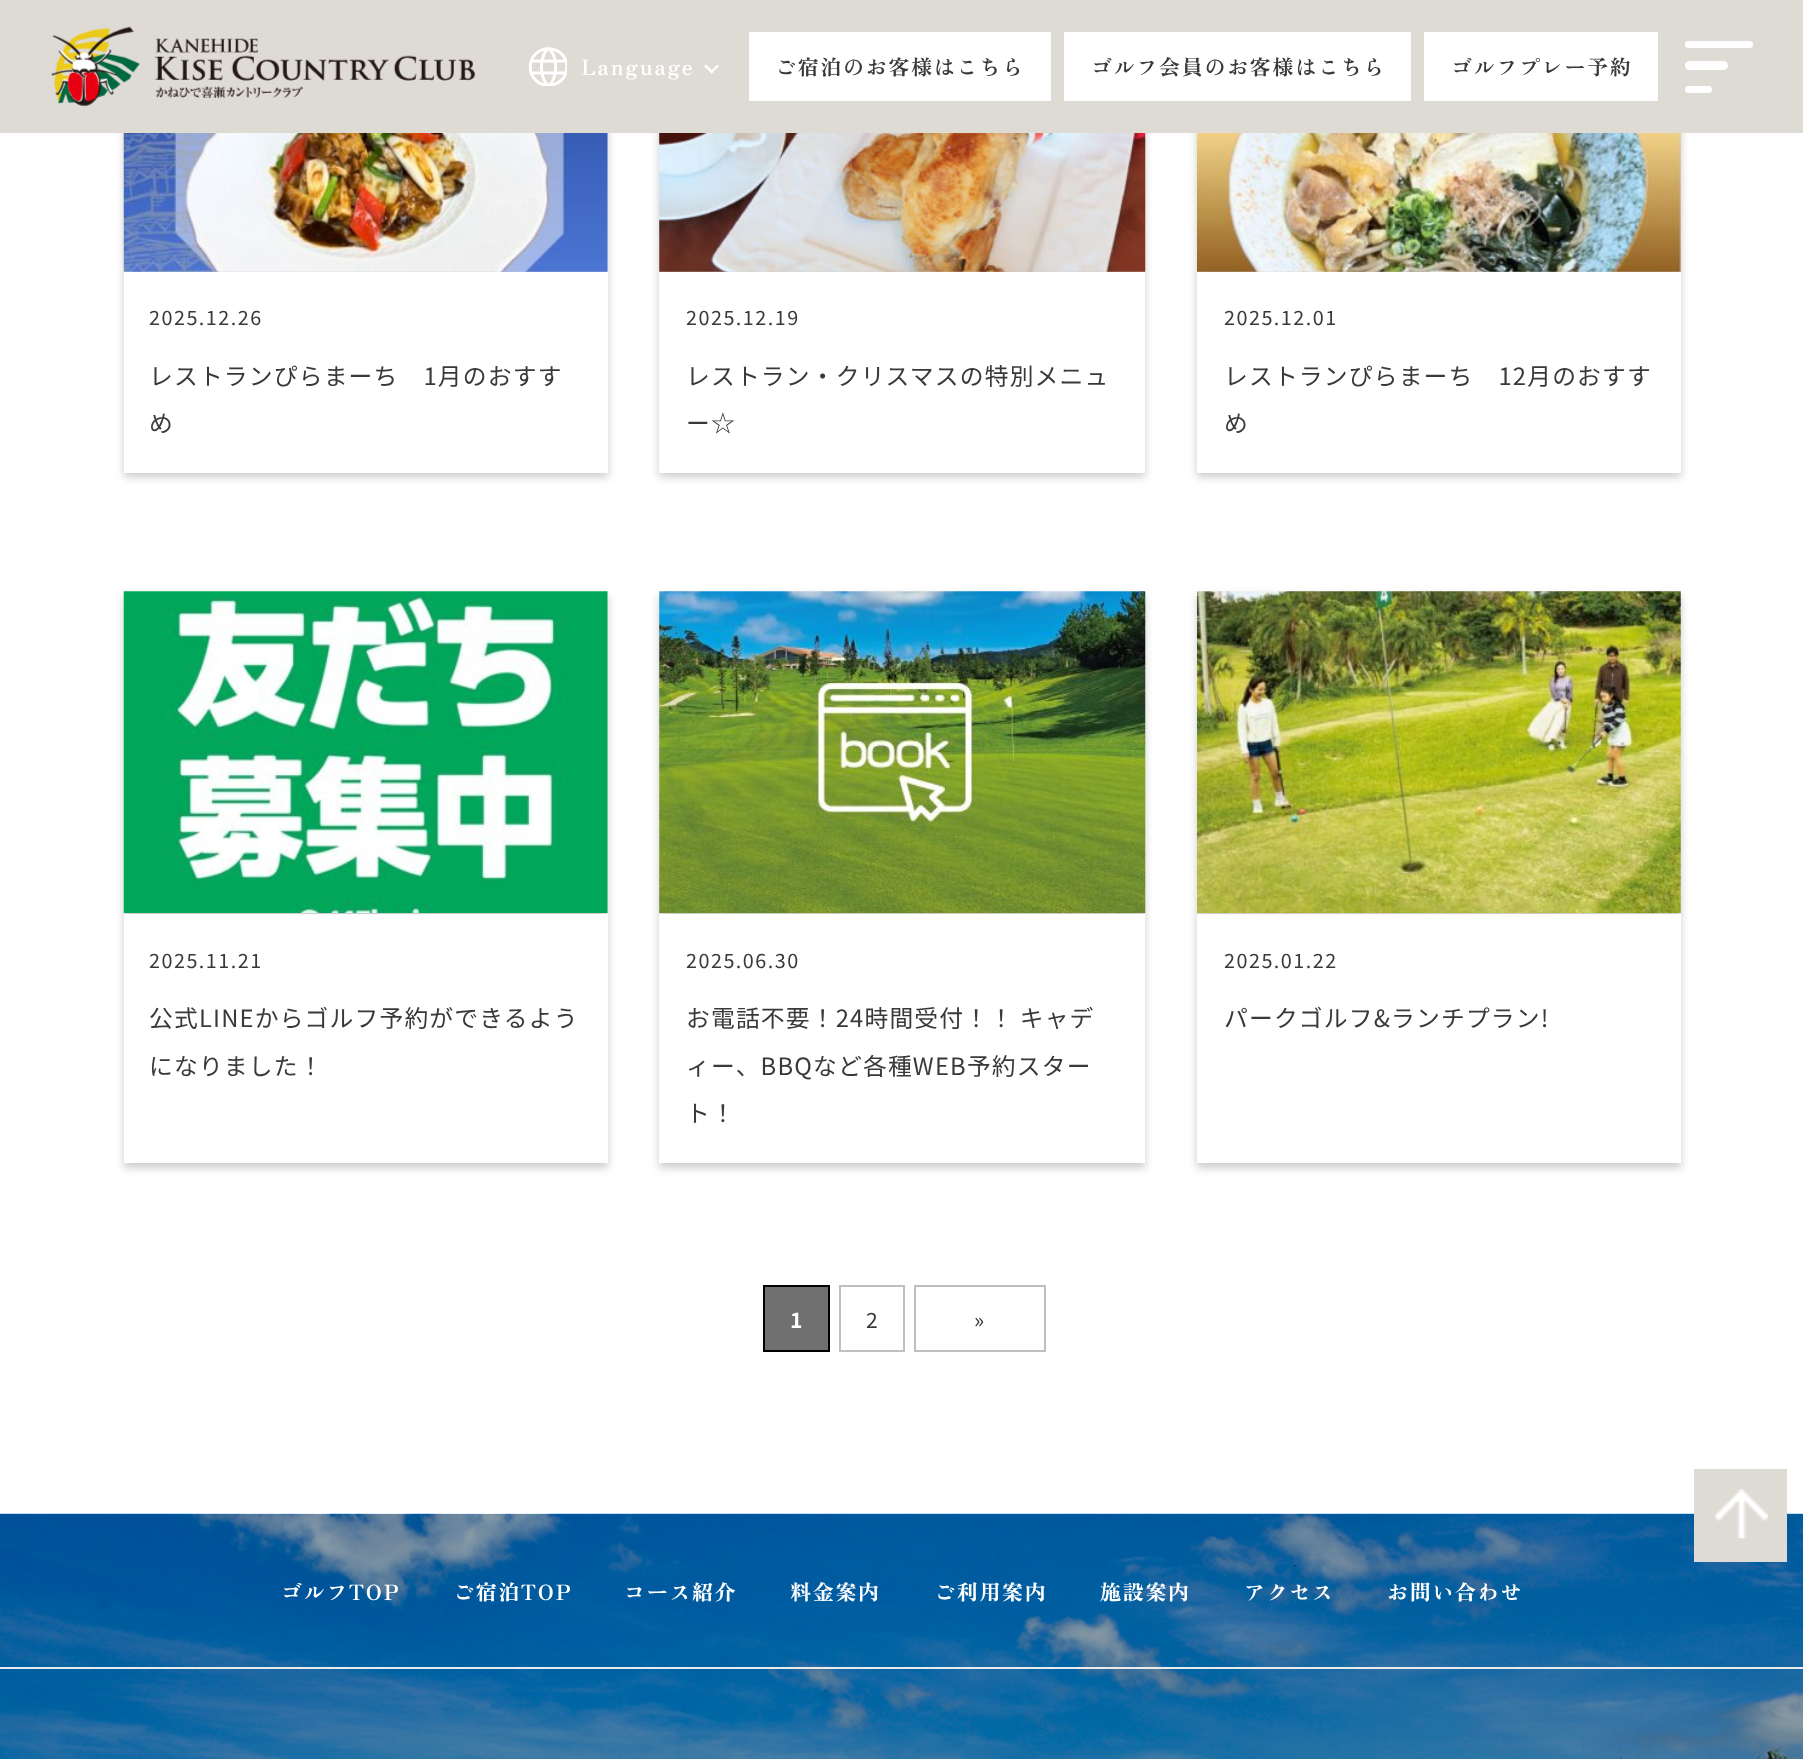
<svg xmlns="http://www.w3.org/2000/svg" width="1803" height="1759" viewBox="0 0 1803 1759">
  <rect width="100%" height="100%" fill="#fff"/>
  <path d="M124 -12h484v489H124z" fill="#00000033" filter="blur(4px)"/>
  <path d="M659 -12h486v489H659z" fill="#00000033" filter="blur(4px)"/>
  <path d="M1197 -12h484v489H1197z" fill="#00000033" filter="blur(4px)"/>
  <path d="M0 0h1803v133H0z" fill="#dedad4"/>
  <image x="51" y="26" width="424" height="80" href="img/1.png"/>
  <image x="529" y="47" width="38" height="39" href="img/2.png"/>
  <path d="M717.5 64.5L719 66L711.5 73.5L710 72Z" fill="#fff"/>
  <path d="M706 64.5L713.5 72L711.5 73.5L704 66Z" fill="#fff"/>
  <path d="M749 32h302v69H749z" fill="#fff"/>
  <path d="M1064 32h347v69H1064z" fill="#fff"/>
  <path d="M1424 32h234v69H1424z" fill="#fff"/>
  <rect x="1685" y="41" width="68" height="7" rx="3.5" fill="#fff"/>
  <rect x="1685" y="61" width="43" height="9" rx="4.5" fill="#fff"/>
  <rect x="1685" y="86" width="27" height="7" rx="3.5" fill="#fff"/>
  <image x="123" y="133" width="485" height="139" href="img/3.png"/>
  <path d="M124 272h484v201H124z" fill="#fff"/>
  <image x="659" y="133" width="487" height="139" href="img/4.png"/>
  <path d="M659 272h486v201H659z" fill="#fff"/>
  <image x="1197" y="133" width="484" height="139" href="img/5.png"/>
  <path d="M1197 272h484v201H1197z" fill="#fff"/>
  <path d="M124 596h484v572H124z" fill="#00000033" filter="blur(4px)"/>
  <image x="123" y="591" width="485" height="322" href="img/6.png"/>
  <path d="M124 914h484v249H124z" fill="#fff"/>
  <path d="M659 596h486v572H659z" fill="#00000033" filter="blur(4px)"/>
  <image x="659" y="591" width="487" height="322" href="img/7.png"/>
  <path d="M659 914h486v249H659z" fill="#fff"/>
  <path d="M1197 596h484v572H1197z" fill="#00000033" filter="blur(4px)"/>
  <image x="1197" y="591" width="484" height="322" href="img/8.png"/>
  <path d="M1197 914h484v249H1197z" fill="#fff"/>
  <path d="M764 1286h65v65H764z" fill="#707070" stroke="#000" stroke-width="2"/>
  <path d="M840 1286h64v65H840z" fill="none" stroke="#bfbfbf" stroke-width="2"/>
  <path d="M915 1286h130v65H915z" fill="none" stroke="#bfbfbf" stroke-width="2"/>
  <image x="0" y="1513" width="1803" height="246" href="img/9.png"/>
  <path d="M1694 1469h93v93H1694z" fill="#dedad4"/>
  <image x="1715" y="1489" width="54" height="50" href="img/10.png"/>
  <path d="M0 1667h1803v2H0z" fill="#ebebeb"/>
  <text x="581" y="75" font-family="Zen Old Mincho" font-size="21.1" font-weight="900" letter-spacing="2" fill="#fff">Language</text>
  <g font-family="Zen Old Mincho" font-size="21.1" font-weight="bold" letter-spacing="1.6" fill="#393939">
    <text x="775" y="75">ご宿泊のお客様はこちら</text>
    <text x="1091" y="75">ゴルフ会員のお客様はこちら</text>
    <text x="1451" y="75">ゴルフプレー予約</text>
  </g>
  <text x="149" y="325" font-family="Noto Sans JP" font-size="19.75" letter-spacing="1.5" fill="#393939">2025.12.26</text>
  <g font-family="Noto Sans JP" font-size="23.75" letter-spacing="1.2" fill="#393939">
    <text x="149" y="385">レストランぴらまーち　1月のおすす</text>
    <text x="149" y="432">め</text>
  </g>
  <text x="686" y="325" font-family="Noto Sans JP" font-size="19.75" letter-spacing="1.5" fill="#393939">2025.12.19</text>
  <g font-family="Noto Sans JP" font-size="23.75" letter-spacing="1.2" fill="#393939">
    <text x="686" y="385">レストラン・クリスマスの特別メニュ</text>
    <text x="686" y="432">ー☆</text>
  </g>
  <text x="1224" y="325" font-family="Noto Sans JP" font-size="19.75" letter-spacing="1.5" fill="#393939">2025.12.01</text>
  <g font-family="Noto Sans JP" font-size="23.75" letter-spacing="1.2" fill="#393939">
    <text x="1224" y="385">レストランぴらまーち　12月のおすす</text>
    <text x="1224" y="432">め</text>
  </g>
  <text x="149" y="968" font-family="Noto Sans JP" font-size="19.75" letter-spacing="1.5" fill="#393939">2025.11.21</text>
  <g font-family="Noto Sans JP" font-size="23.75" letter-spacing="1.2" fill="#393939">
    <text x="149" y="1027">公式LINEからゴルフ予約ができるよう</text>
    <text x="149" y="1075">になりました！</text>
  </g>
  <text x="686" y="968" font-family="Noto Sans JP" font-size="19.75" letter-spacing="1.5" fill="#393939">2025.06.30</text>
  <g font-family="Noto Sans JP" font-size="23.75" letter-spacing="1.2" fill="#393939">
    <text x="686" y="1027" word-spacing="-1">お電話不要！24時間受付！！ キャデ</text>
    <text x="686" y="1075">ィー、BBQなど各種WEB予約スター</text>
    <text x="686" y="1122">ト！</text>
  </g>
  <text x="1224" y="968" font-family="Noto Sans JP" font-size="19.75" letter-spacing="1.5" fill="#393939">2025.01.22</text>
  <text x="1224" y="1027" font-family="Noto Sans JP" font-size="23.75" letter-spacing="1.2" fill="#393939">パークゴルフ&amp;ランチプラン!</text>
  <text x="790" y="1328" font-family="Noto Sans JP" font-size="21.1" font-weight="bold" fill="#fff">1</text>
  <g font-family="Noto Sans JP" font-size="21.1" fill="#393939">
    <text x="866" y="1328">2</text>
    <text x="974" y="1328">»</text>
  </g>
  <g font-family="Zen Old Mincho" font-size="21.1" font-weight="900" letter-spacing="1.6" fill="#fff">
    <text x="281" y="1600">ゴルフTOP</text>
    <text x="453" y="1600">ご宿泊TOP</text>
    <text x="624" y="1600">コース紹介</text>
    <text x="790" y="1600">料金案内</text>
    <text x="934" y="1600">ご利用案内</text>
    <text x="1100" y="1600">施設案内</text>
    <text x="1244" y="1600">アクセス</text>
    <text x="1387" y="1600">お問い合わせ</text>
  </g>
</svg>
